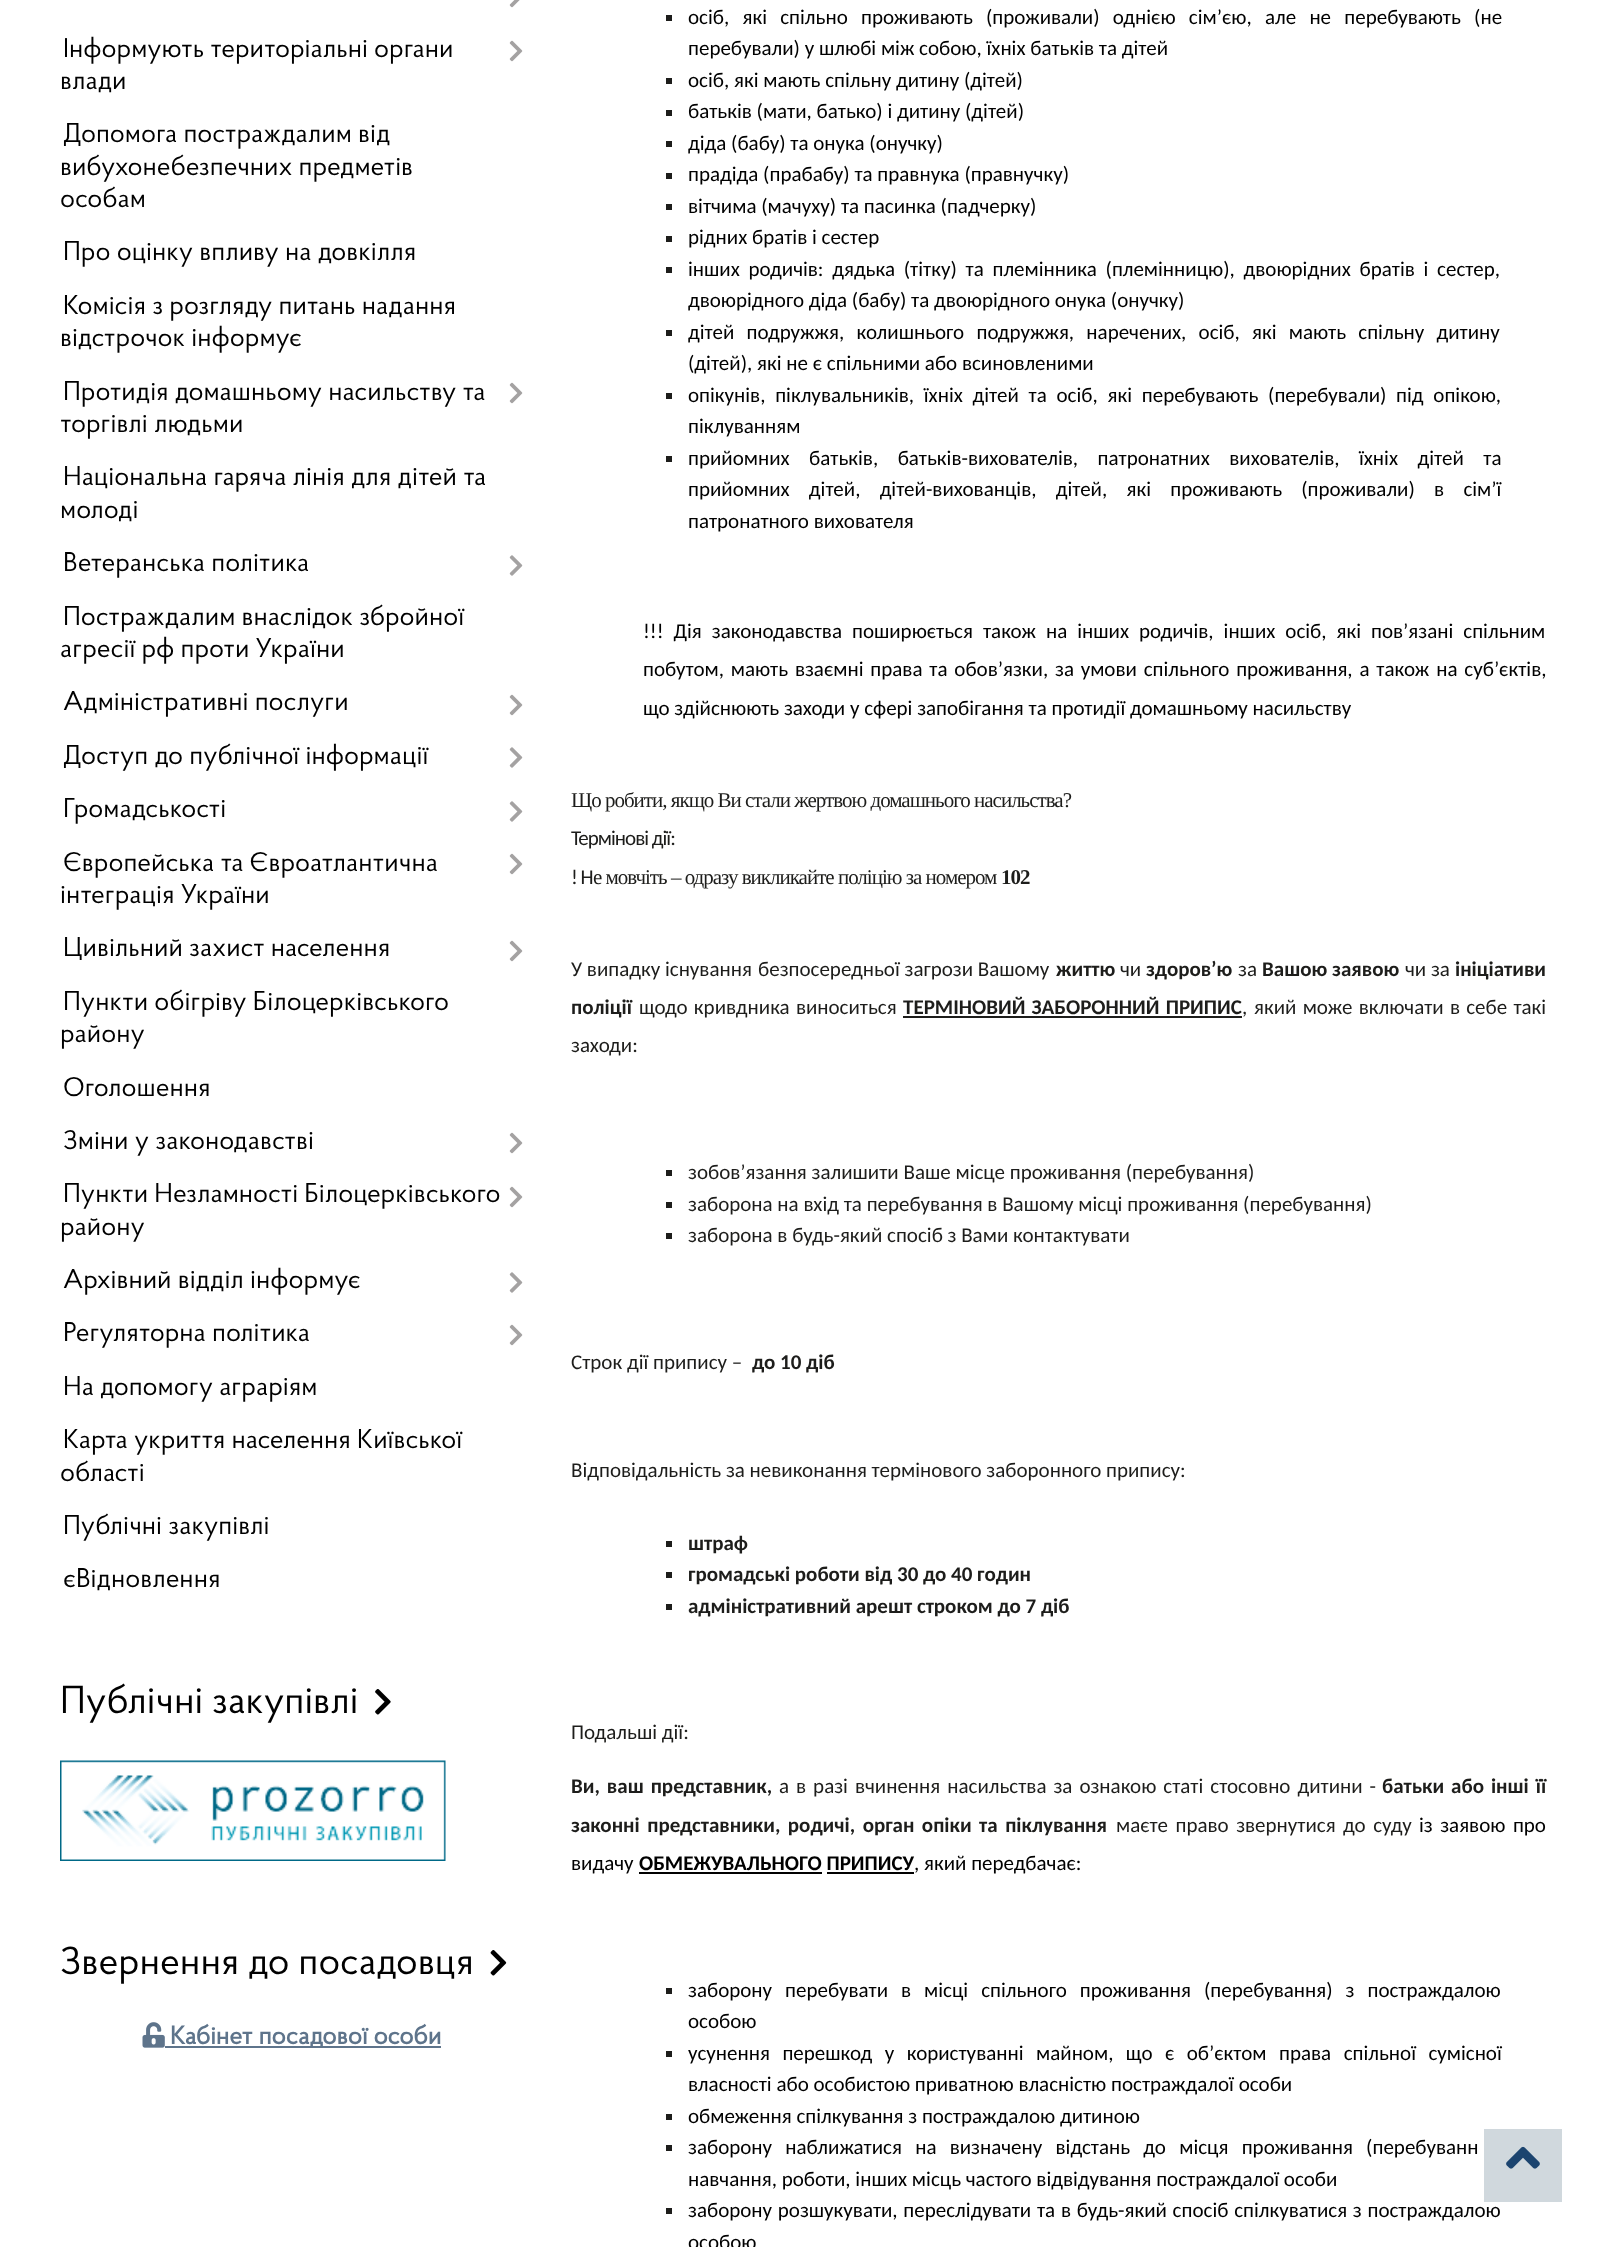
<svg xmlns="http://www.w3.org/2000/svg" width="1606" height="2247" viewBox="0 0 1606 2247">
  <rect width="100%" height="100%" fill="#fff"/>
  <image x="509" y="0" width="11" height="8" href="img/1.png"/>
  <image x="509" y="40" width="14" height="22" href="img/2.png"/>
  <image x="509" y="382" width="14" height="22" href="img/2.png"/>
  <image x="509" y="555" width="14" height="21" href="img/3.png"/>
  <image x="509" y="694" width="14" height="22" href="img/2.png"/>
  <image x="509" y="747" width="14" height="21" href="img/3.png"/>
  <image x="509" y="801" width="14" height="21" href="img/3.png"/>
  <image x="509" y="853" width="14" height="22" href="img/2.png"/>
  <image x="509" y="940" width="14" height="22" href="img/2.png"/>
  <image x="509" y="1132" width="14" height="22" href="img/2.png"/>
  <image x="509" y="1186" width="14" height="22" href="img/2.png"/>
  <image x="509" y="1272" width="14" height="21" href="img/3.png"/>
  <image x="509" y="1324" width="14" height="22" href="img/2.png"/>
  <image x="375" y="1689" width="16" height="26" href="img/4.png"/>
  <image x="60" y="1760" width="386" height="101" href="img/5.png"/>
  <image x="490" y="1950" width="17" height="26" href="img/6.png"/>
  <image x="142" y="2022" width="23" height="26" href="img/7.png"/>
  <path d="M165 2046h276v2H165z" fill="#5e748b"/>
  <path d="M666 15h6v6H666z" fill="#1d1d1b"/>
  <path d="M666 78h6v6H666z" fill="#1d1d1b"/>
  <path d="M666 110h6v6H666z" fill="#1d1d1b"/>
  <path d="M666 141h6v6H666z" fill="#1d1d1b"/>
  <path d="M666 173h6v6H666z" fill="#1d1d1b"/>
  <path d="M666 204h6v6H666z" fill="#1d1d1b"/>
  <path d="M666 236h6v6H666z" fill="#1d1d1b"/>
  <path d="M666 267h6v6H666z" fill="#1d1d1b"/>
  <path d="M666 330h6v6H666z" fill="#1d1d1b"/>
  <path d="M666 393h6v6H666z" fill="#1d1d1b"/>
  <path d="M666 456h6v6H666z" fill="#1d1d1b"/>
  <path d="M903 1016h339v2H903z" fill="#1d1d1b"/>
  <path d="M666 1170h6v6H666z" fill="#1d1d1b"/>
  <path d="M666 1202h6v6H666z" fill="#1d1d1b"/>
  <path d="M666 1233h6v6H666z" fill="#1d1d1b"/>
  <path d="M666 1541h6v6H666z" fill="#1d1d1b"/>
  <path d="M666 1572h6v6H666z" fill="#1d1d1b"/>
  <path d="M666 1604h6v6H666z" fill="#1d1d1b"/>
  <path d="M639 1872h183v2H639z" fill="#000"/>
  <path d="M827 1872h87v2H827z" fill="#000"/>
  <path d="M666 1988h6v6H666z" fill="#1d1d1b"/>
  <path d="M666 2051h6v6H666z" fill="#1d1d1b"/>
  <path d="M666 2114h6v6H666z" fill="#1d1d1b"/>
  <path d="M666 2145h6v6H666z" fill="#1d1d1b"/>
  <path d="M666 2208h6v6H666z" fill="#1d1d1b"/>
  <path d="M1484 2129h78v73H1484z" fill="#ced7dcf7"/>
  <image x="1506" y="2146" width="34" height="23" href="img/8.png"/>
  <g font-family="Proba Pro" font-size="27" fill="#000">
    <text x="63" y="57">Інформують територіальні органи</text>
    <text x="60" y="89">влади</text>
    <text x="63" y="142">Допомога постраждалим від</text>
    <text x="60" y="175">вибухонебезпечних предметів</text>
    <text x="60" y="207">особам</text>
    <text x="63" y="260">Про оцінку впливу на довкілля</text>
    <text x="63" y="314">Комісія з розгляду питань надання</text>
    <text x="60" y="346">відстрочок інформує</text>
    <text x="63" y="400">Протидія домашньому насильству та</text>
    <text x="60" y="432">торгівлі людьми</text>
    <text x="63" y="485">Національна гаряча лінія для дітей та</text>
    <text x="60" y="518">молоді</text>
    <text x="63" y="571">Ветеранська політика</text>
    <text x="63" y="625">Постраждалим внаслідок збройної</text>
    <text x="60" y="657">агресії рф проти України</text>
    <text x="63" y="710">Адміністративні послуги</text>
    <text x="63" y="764">Доступ до публічної інформації</text>
    <text x="63" y="817">Громадськості</text>
    <text x="63" y="871">Європейська та Євроатлантична</text>
    <text x="60" y="903">інтеграція України</text>
    <text x="63" y="956">Цивільний захист населення</text>
    <text x="63" y="1010">Пункти обігріву Білоцерківського</text>
    <text x="60" y="1042">району</text>
    <text x="63" y="1096">Оголошення</text>
    <text x="63" y="1149">Зміни у законодавстві</text>
    <text x="63" y="1202">Пункти Незламності Білоцерківського</text>
    <text x="60" y="1235">району</text>
    <text x="63" y="1288">Архівний відділ інформує</text>
    <text x="63" y="1341">Регуляторна політика</text>
    <text x="63" y="1395">На допомогу аграріям</text>
    <text x="63" y="1448">Карта укриття населення Київської</text>
    <text x="60" y="1481">області</text>
    <text x="63" y="1534">Публічні закупівлі</text>
    <text x="63" y="1587">єВідновлення</text>
  </g>
  <g font-family="Proba Pro" font-size="39" fill="#000">
    <text x="60" y="1713">Публічні закупівлі</text>
    <text x="60" y="1974">Звернення до посадовця</text>
  </g>
  <text x="170" y="2044" font-family="Proba Pro" font-size="25.5" font-weight="bold" fill="#5e748b">Кабінет посадової особи</text>
  <g font-family="Carlito" font-size="21" fill="#000">
    <text x="688" y="24" word-spacing="8.5">осіб, які спільно проживають (проживали) однією сім’єю, але не перебувають (не</text>
    <text x="688" y="55">перебували) у шлюбі між собою, їхніх батьків та дітей</text>
    <text x="688" y="87">осіб, які мають спільну дитину (дітей)</text>
    <text x="688" y="118">батьків (мати, батько) і дитину (дітей)</text>
    <text x="688" y="150">діда (бабу) та онука (онучку)</text>
    <text x="688" y="181">прадіда (прабабу) та правнука (правнучку)</text>
    <text x="688" y="213">вітчима (мачуху) та пасинка (падчерку)</text>
    <text x="688" y="244">рідних братів і сестер</text>
    <text x="688" y="276" word-spacing="4">інших родичів: дядька (тітку) та племінника (племінницю), двоюрідних братів і сестер,</text>
    <text x="688" y="307">двоюрідного діда (бабу) та двоюрідного онука (онучку)</text>
    <text x="688" y="339" word-spacing="7.5">дітей подружжя, колишнього подружжя, наречених, осіб, які мають спільну дитину</text>
    <text x="688" y="370">(дітей), які не є спільними або всиновленими</text>
    <text x="688" y="402" word-spacing="5">опікунів, піклувальників, їхніх дітей та осіб, які перебувають (перебували) під опікою,</text>
    <text x="688" y="433">піклуванням</text>
    <text x="688" y="465" word-spacing="14.75">прийомних батьків, батьків-вихователів, патронатних вихователів, їхніх дітей та</text>
    <text x="688" y="496" word-spacing="14.5">прийомних дітей, дітей-вихованців, дітей, які проживають (проживали) в сім’ї</text>
    <text x="688" y="528">патронатного вихователя</text>
    <text x="643" y="638" word-spacing="5.25">!!! Дія законодавства поширюється також на інших родичів, інших осіб, які пов’язані спільним</text>
    <text x="643" y="676" word-spacing="2.1">побутом, мають взаємні права та обов’язки, за умови спільного проживання, а також на суб’єктів,</text>
    <text x="643" y="715">що здійснюють заходи у сфері запобігання та протидії домашньому насильству</text>
  </g>
  <text x="571" y="807" font-family="Liberation Serif" font-size="21" letter-spacing="-1" fill="#1d1d1b">Що робити, якщо Ви стали жертвою домашнього насильства?</text>
  <g font-family="Carlito" font-size="21" letter-spacing="-1" fill="#1d1d1b">
    <text x="571" y="845">Термінові дії:</text>
    <text x="571" y="884">! Н</text>
  </g>
  <text x="593" y="884" font-family="Liberation Serif" font-size="21" letter-spacing="-1" fill="#1d1d1b">е мовчіть – одразу викликайте поліцію за номером</text>
  <text x="1001" y="884" font-family="Liberation Serif" font-size="21" font-weight="bold" letter-spacing="-1" fill="#1d1d1b">102</text>
  <g font-family="Carlito" font-size="21" fill="#1d1d1b">
    <text x="571" y="976">У випадку існування</text>
    <text x="758" y="976">безпосередньої загрози Вашому</text>
  </g>
  <text x="1056" y="976" font-family="Carlito" font-size="21" font-weight="bold" fill="#1d1d1b">життю</text>
  <text x="1120" y="976" font-family="Carlito" font-size="21" fill="#1d1d1b">чи</text>
  <text x="1146" y="976" font-family="Carlito" font-size="21" font-weight="bold" fill="#1d1d1b">здоров’ю</text>
  <text x="1238" y="976" font-family="Carlito" font-size="21" fill="#1d1d1b">за</text>
  <g font-family="Carlito" font-size="21" font-weight="bold" fill="#1d1d1b">
    <text x="1262" y="976">Вашою</text>
    <text x="1332" y="976">заявою</text>
  </g>
  <text x="1405" y="976" font-family="Carlito" font-size="21" fill="#1d1d1b">чи за</text>
  <g font-family="Carlito" font-size="21" font-weight="bold" fill="#1d1d1b">
    <text x="1455" y="976">ініціативи</text>
    <text x="571" y="1014">поліції</text>
  </g>
  <text x="639" y="1014" word-spacing="1.5" font-family="Carlito" font-size="21" fill="#1d1d1b">щодо кривдника виноситься</text>
  <text x="903" y="1014" word-spacing="1.5" font-family="Carlito" font-size="21" font-weight="bold" fill="#1d1d1b">ТЕРМІНОВИЙ ЗАБОРОННИЙ ПРИПИС</text>
  <g font-family="Carlito" font-size="21" fill="#1d1d1b">
    <text x="1242" y="1014">,</text>
    <text x="1254" y="1014" word-spacing="1.5">який може включати в себе такі</text>
    <text x="571" y="1052">заходи:</text>
    <text x="688" y="1179">зобов’язання залишити Ваше місце проживання (перебування)</text>
    <text x="688" y="1211">заборона на вхід та перебування в Вашому місці проживання (перебування)</text>
    <text x="688" y="1242">заборона в будь-який спосіб з Вами контактувати</text>
    <text x="571" y="1369">Строк дії припису –</text>
  </g>
  <text x="752" y="1369" font-family="Carlito" font-size="21" font-weight="bold" fill="#1d1d1b">до 10 діб</text>
  <text x="571" y="1477" font-family="Carlito" font-size="21" fill="#1d1d1b">Відповідальність за невиконання термінового заборонного припису:</text>
  <g font-family="Carlito" font-size="21" font-weight="bold" fill="#1d1d1b">
    <text x="688" y="1550">штраф</text>
    <text x="688" y="1581">громадські роботи від 30 до 40 годин</text>
    <text x="688" y="1613">адміністративний арешт строком до 7 діб</text>
  </g>
  <text x="571" y="1739" font-family="Carlito" font-size="21" fill="#1d1d1b">Подальші дії:</text>
  <text x="571" y="1793" word-spacing="2.25" font-family="Carlito" font-size="21" font-weight="bold" fill="#1d1d1b">Ви, ваш представник,</text>
  <text x="779" y="1793" word-spacing="2.25" font-family="Carlito" font-size="21" fill="#1d1d1b">а в разі вчинення насильства за ознакою статі стосовно дитини -</text>
  <g font-family="Carlito" font-size="21" font-weight="bold" fill="#1d1d1b">
    <text x="1382" y="1793" word-spacing="2.25">батьки або інші її</text>
    <text x="571" y="1832" word-spacing="2.75">законні представники, родичі, орган опіки та піклування</text>
  </g>
  <text x="1116" y="1832" word-spacing="2.75" font-family="Carlito" font-size="21" fill="#1d1d1b">маєте право звернутися до суду</text>
  <g font-family="Carlito" font-size="21" fill="#000">
    <text x="1419" y="1832" word-spacing="2.75">із заявою про</text>
    <text x="571" y="1870">видачу</text>
  </g>
  <text x="639" y="1870" font-family="Carlito" font-size="21" font-weight="bold" fill="#000">ОБМЕЖУВАЛЬНОГО ПРИПИСУ</text>
  <g font-family="Carlito" font-size="21" fill="#000">
    <text x="914" y="1870">, який передбачає:</text>
    <text x="688" y="1997" word-spacing="8.25">заборону перебувати в місці спільного проживання (перебування) з постраждалою</text>
    <text x="688" y="2028">особою</text>
    <text x="688" y="2060" word-spacing="7.75">усунення перешкод у користуванні майном, що є об’єктом права спільної сумісної</text>
    <text x="688" y="2091">власності або особистою приватною власністю постраждалої особи</text>
    <text x="688" y="2123">обмеження спілкування з постраждалою дитиною</text>
    <text x="688" y="2154" word-spacing="8.5">заборону наближатися на визначену відстань до місця проживання (перебуванн</text>
    <text x="688" y="2186">навчання, роботи, інших місць частого відвідування постраждалої особи</text>
    <text x="688" y="2217" word-spacing="1">заборону розшукувати, переслідувати та в будь-який спосіб спілкуватися з постраждалою</text>
    <text x="688" y="2249">особою</text>
  </g>
</svg>
